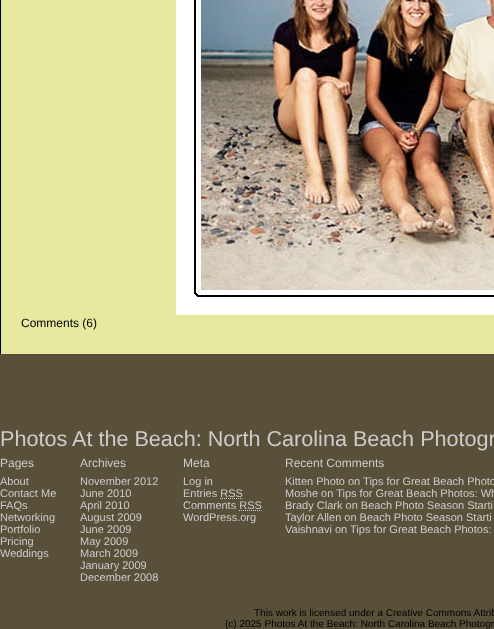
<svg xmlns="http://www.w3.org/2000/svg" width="494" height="629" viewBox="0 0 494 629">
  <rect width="100%" height="100%" fill="#e7ea9e"/>
  <path d="M0 0h1v354H0z" fill="#000"/>
  <image x="176" y="0" width="318" height="315" href="img/1.png"/>
  <path d="M0 354h494v275H0z" fill="#59503a"/>
  <path d="M220 498.5H242.5" fill="none" stroke="#ccc" stroke-dasharray="1 1"/>
  <path d="M239 510.5H261.5" fill="none" stroke="#ccc" stroke-dasharray="1 1"/>
  <text x="21" y="327" font-family="Liberation Sans" font-size="12" fill="#000">Comments (6)</text>
  <text x="0" y="446" font-family="Liberation Sans" font-size="21.6" fill="#ccc">Photos At the Beach: North Carolina Beach Photogr</text>
  <text x="0" y="467" font-family="Liberation Sans" font-size="12" fill="#ccc">Pages</text>
  <g font-family="Liberation Sans" font-size="11" fill="#ccc">
    <text x="0" y="485">About</text>
    <text x="0" y="497">Contact Me</text>
    <text x="0" y="509">FAQs</text>
    <text x="0" y="521">Networking</text>
    <text x="0" y="533">Portfolio</text>
    <text x="0" y="545">Pricing</text>
    <text x="0" y="557">Weddings</text>
  </g>
  <text x="80" y="467" font-family="Liberation Sans" font-size="12" fill="#ccc">Archives</text>
  <g font-family="Liberation Sans" font-size="11" fill="#ccc">
    <text x="80" y="485">November 2012</text>
    <text x="80" y="497">June 2010</text>
    <text x="80" y="509">April 2010</text>
    <text x="80" y="521">August 2009</text>
    <text x="80" y="533">June 2009</text>
    <text x="80" y="545">May 2009</text>
    <text x="80" y="557">March 2009</text>
    <text x="80" y="569">January 2009</text>
    <text x="80" y="581">December 2008</text>
  </g>
  <text x="183" y="467" font-family="Liberation Sans" font-size="12" fill="#ccc">Meta</text>
  <g font-family="Liberation Sans" font-size="11" fill="#ccc">
    <text x="183" y="485">Log in</text>
    <text x="183" y="497">Entries RSS</text>
    <text x="183" y="509">Comments RSS</text>
    <text x="183" y="521">WordPress.org</text>
  </g>
  <text x="285" y="467" font-family="Liberation Sans" font-size="12" fill="#ccc">Recent Comments</text>
  <g font-family="Liberation Sans" font-size="11" fill="#ccc">
    <text x="285" y="485">Kitten Photo on Tips for Great Beach Photo</text>
    <text x="285" y="497">Moshe on Tips for Great Beach Photos: Wh</text>
    <text x="285" y="509">Brady Clark on Beach Photo Season Starti</text>
    <text x="285" y="521">Taylor Allen on Beach Photo Season Starti</text>
    <text x="285" y="533">Vaishnavi on Tips for Great Beach Photos:</text>
  </g>
  <g font-family="Liberation Sans" font-size="10" fill="#000">
    <text x="254" y="616">This work is licensed under a Creative Commons Attrib</text>
    <text x="225" y="627">(c) 2025 Photos At the Beach: North Carolina Beach Photogr</text>
  </g>
</svg>
